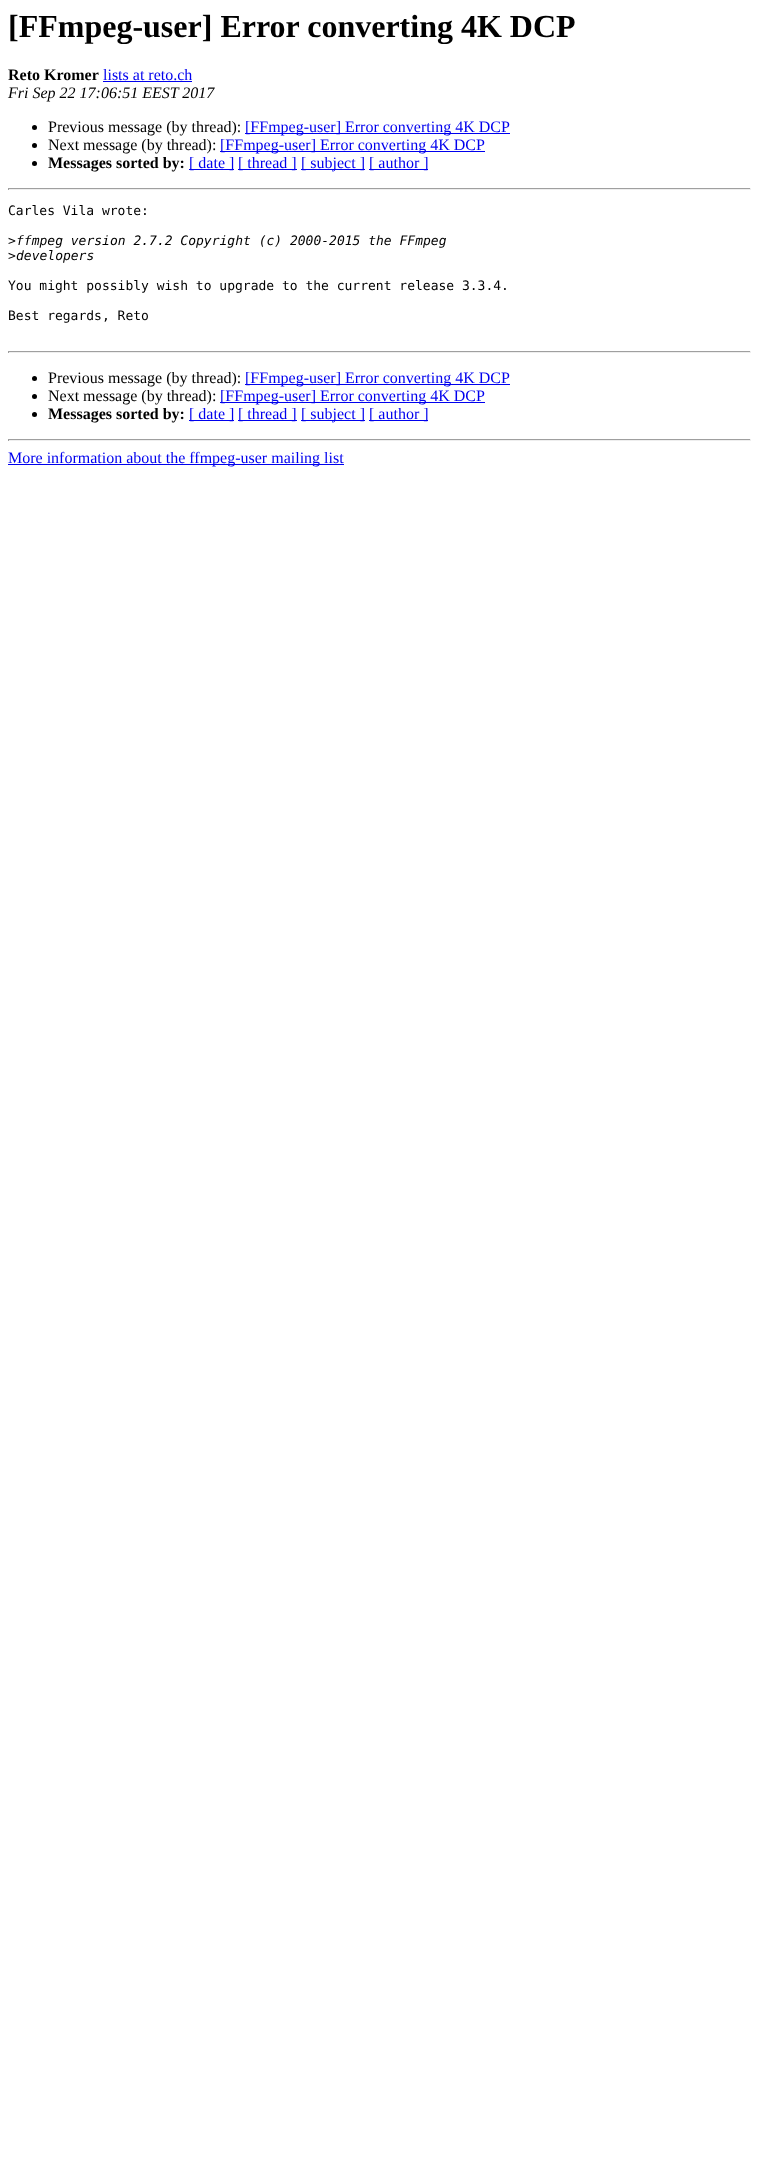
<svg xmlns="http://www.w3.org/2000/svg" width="759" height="2163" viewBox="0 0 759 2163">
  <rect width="100%" height="100%" fill="#fff"/>
  <path d="M103 81h89v1H103z" fill="#00e"/>
  <circle cx="34.5" cy="127.5" r="2.5" fill="#000"/>
  <path d="M245 133h265v1H245z" fill="#00e"/>
  <circle cx="34.5" cy="145.5" r="2.5" fill="#000"/>
  <path d="M220 151h265v1H220z" fill="#00e"/>
  <circle cx="34.5" cy="163.5" r="2.5" fill="#000"/>
  <path d="M189 169h45v1H189z" fill="#00e"/>
  <path d="M238 169h59v1H238z" fill="#00e"/>
  <path d="M301 169h64v1H301z" fill="#00e"/>
  <path d="M369 169h59v1H369z" fill="#00e"/>
  <path d="M8 188h743v1H8z" fill="#9f9f9f"/>
  <path d="M750 188h1v2H750z" fill="#eee"/>
  <path d="M8 189h743v1H8z" fill="#eee"/>
  <path d="M8 188h1v2H8z" fill="#9f9f9f"/>
  <path d="M8 351h743v1H8z" fill="#9f9f9f"/>
  <path d="M750 351h1v2H750z" fill="#eee"/>
  <path d="M8 352h743v1H8z" fill="#eee"/>
  <path d="M8 351h1v2H8z" fill="#9f9f9f"/>
  <circle cx="34.5" cy="378.5" r="2.5" fill="#000"/>
  <path d="M245 384h265v1H245z" fill="#00e"/>
  <circle cx="34.5" cy="396.5" r="2.5" fill="#000"/>
  <path d="M220 402h265v1H220z" fill="#00e"/>
  <circle cx="34.5" cy="414.5" r="2.5" fill="#000"/>
  <path d="M189 420h45v1H189z" fill="#00e"/>
  <path d="M238 420h59v1H238z" fill="#00e"/>
  <path d="M301 420h64v1H301z" fill="#00e"/>
  <path d="M369 420h59v1H369z" fill="#00e"/>
  <path d="M8 439h743v1H8z" fill="#9f9f9f"/>
  <path d="M750 439h1v2H750z" fill="#eee"/>
  <path d="M8 440h743v1H8z" fill="#eee"/>
  <path d="M8 439h1v2H8z" fill="#9f9f9f"/>
  <path d="M8 464h336v1H8z" fill="#00e"/>
  <text x="8" y="37" font-family="Liberation Serif" font-size="32" font-weight="bold" fill="#000">[FFmpeg-user] Error converting 4K DCP</text>
  <text x="8" y="80" font-family="Liberation Serif" font-size="16" font-weight="bold" fill="#000">Reto Kromer</text>
  <text x="103" y="80" font-family="Liberation Serif" font-size="16" fill="#00e">lists at reto.ch</text>
  <text x="8" y="98" font-family="Liberation Serif" font-size="16" font-style="italic" fill="#000">Fri Sep 22 17:06:51 EEST 2017</text>
  <text x="48" y="132" font-family="Liberation Serif" font-size="16" fill="#000">Previous message (by thread):</text>
  <text x="245" y="132" font-family="Liberation Serif" font-size="16" fill="#00e">[FFmpeg-user] Error converting 4K DCP</text>
  <text x="48" y="150" font-family="Liberation Serif" font-size="16" fill="#000">Next message (by thread):</text>
  <text x="220" y="150" font-family="Liberation Serif" font-size="16" fill="#00e">[FFmpeg-user] Error converting 4K DCP</text>
  <text x="48" y="168" font-family="Liberation Serif" font-size="16" font-weight="bold" fill="#000">Messages sorted by:</text>
  <g font-family="Liberation Serif" font-size="16" fill="#00e">
    <text x="189" y="168">[ date ]</text>
    <text x="238" y="168">[ thread ]</text>
    <text x="301" y="168">[ subject ]</text>
    <text x="369" y="168">[ author ]</text>
  </g>
  <g font-family="DejaVu Sans Mono" font-size="13" fill="#000">
    <text x="8" y="215">Carles Vila wrote:</text>
    <text x="8" y="245">&gt;</text>
  </g>
  <text x="16" y="245" font-family="DejaVu Sans Mono" font-size="13" font-style="italic" fill="#000">ffmpeg version 2.7.2 Copyright (c) 2000-2015 the FFmpeg</text>
  <text x="8" y="260" font-family="DejaVu Sans Mono" font-size="13" fill="#000">&gt;</text>
  <text x="16" y="260" font-family="DejaVu Sans Mono" font-size="13" font-style="italic" fill="#000">developers</text>
  <g font-family="DejaVu Sans Mono" font-size="13" fill="#000">
    <text x="8" y="290">You might possibly wish to upgrade to the current release 3.3.4.</text>
    <text x="8" y="320">Best regards, Reto</text>
  </g>
  <text x="48" y="383" font-family="Liberation Serif" font-size="16" fill="#000">Previous message (by thread):</text>
  <text x="245" y="383" font-family="Liberation Serif" font-size="16" fill="#00e">[FFmpeg-user] Error converting 4K DCP</text>
  <text x="48" y="401" font-family="Liberation Serif" font-size="16" fill="#000">Next message (by thread):</text>
  <text x="220" y="401" font-family="Liberation Serif" font-size="16" fill="#00e">[FFmpeg-user] Error converting 4K DCP</text>
  <text x="48" y="419" font-family="Liberation Serif" font-size="16" font-weight="bold" fill="#000">Messages sorted by:</text>
  <g font-family="Liberation Serif" font-size="16" fill="#00e">
    <text x="189" y="419">[ date ]</text>
    <text x="238" y="419">[ thread ]</text>
    <text x="301" y="419">[ subject ]</text>
    <text x="369" y="419">[ author ]</text>
    <text x="8" y="463">More information about the ffmpeg-user mailing list</text>
  </g>
</svg>
